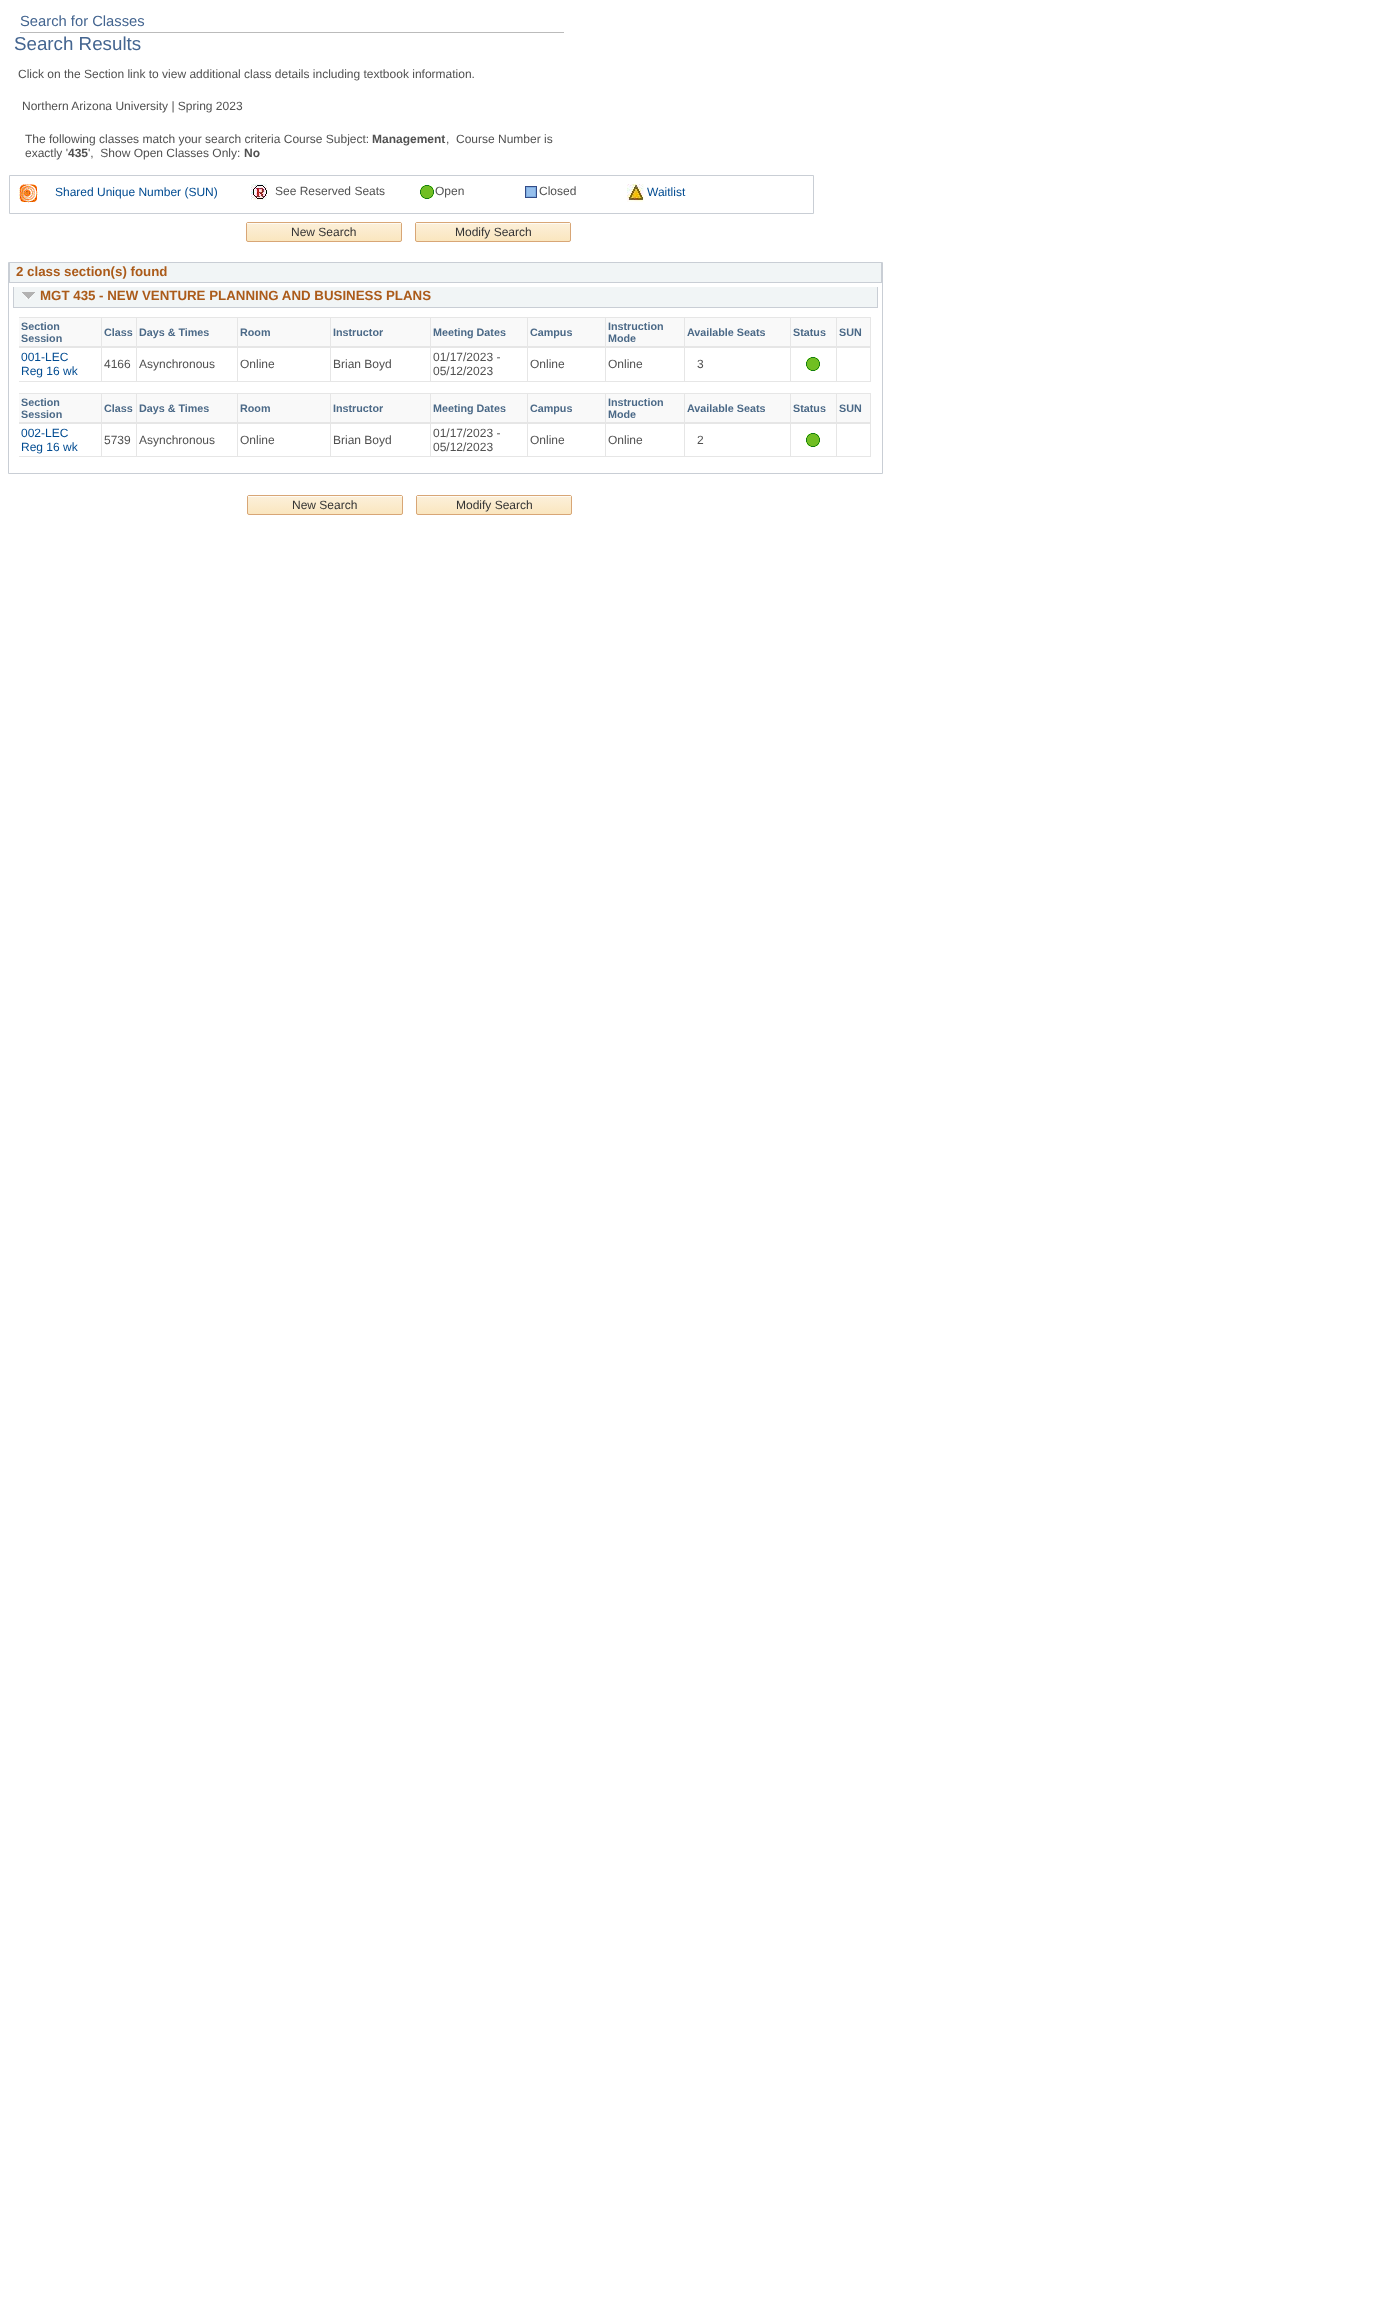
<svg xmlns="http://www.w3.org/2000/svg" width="1396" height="2301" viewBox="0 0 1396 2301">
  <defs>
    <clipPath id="clip1"><rect x="246" y="222" width="156" height="20" rx="2"/></clipPath>
    <linearGradient id="g1" gradientUnits="userSpaceOnUse" x1="247" y1="223" x2="247" y2="241"><stop offset="0" stop-color="#fcf0da"/><stop offset="1" stop-color="#fae6bf"/></linearGradient>
    <clipPath id="clip2"><rect x="415" y="222" width="156" height="20" rx="2"/></clipPath>
    <linearGradient id="g2" gradientUnits="userSpaceOnUse" x1="416" y1="223" x2="416" y2="241"><stop offset="0" stop-color="#fcf0da"/><stop offset="1" stop-color="#fae6bf"/></linearGradient>
    <clipPath id="clip3"><rect x="247" y="495" width="156" height="20" rx="2"/></clipPath>
    <linearGradient id="g3" gradientUnits="userSpaceOnUse" x1="248" y1="496" x2="248" y2="514"><stop offset="0" stop-color="#fcf0da"/><stop offset="1" stop-color="#fae6bf"/></linearGradient>
    <clipPath id="clip4"><rect x="416" y="495" width="156" height="20" rx="2"/></clipPath>
    <linearGradient id="g4" gradientUnits="userSpaceOnUse" x1="417" y1="496" x2="417" y2="514"><stop offset="0" stop-color="#fcf0da"/><stop offset="1" stop-color="#fae6bf"/></linearGradient>
  </defs>
  <rect width="100%" height="100%" fill="#fff"/>
  <path d="M20 32h544v1H20z" fill="#bbb"/>
  <path d="M9.5 175.5h804v38H9.5z" fill="none" stroke="#c9ced5"/>
  <image x="19" y="184" width="19" height="19" href="img/1.png"/>
  <image x="251" y="184" width="16" height="16" href="img/2.png"/>
  <image x="420" y="185" width="14" height="14" href="img/3.png"/>
  <image x="525" y="186" width="12" height="12" href="img/4.png"/>
  <image x="627" y="184" width="17" height="18" href="img/5.png"/>
  <g clip-path="url(#clip1)">
    <path d="M246 223h156v18H246z" fill="url(#g1)"/>
  </g>
  <rect x="246.5" y="222.5" width="155" height="19" rx="1.5" fill="none" stroke="#d8a676"/>
  <path d="M247 223h154v1H247z" fill="#fefbf4"/>
  <g clip-path="url(#clip2)">
    <path d="M415 223h156v18H415z" fill="url(#g2)"/>
  </g>
  <rect x="415.5" y="222.5" width="155" height="19" rx="1.5" fill="none" stroke="#d8a676"/>
  <path d="M416 223h154v1H416z" fill="#fefbf4"/>
  <path d="M8.5 262.5h874v211H8.5z" fill="none" stroke="#c9ced5"/>
  <path d="M10 263h871v19H10z" fill="#f1f5f6"/>
  <path d="M881 263h1v20H881z" fill="#c9ced5"/>
  <path d="M9 282h873v1H9z" fill="#c9ced5"/>
  <path d="M9 263h1v20H9z" fill="#c9ced5"/>
  <path d="M14 287h863v20H14z" fill="#f1f5f6"/>
  <path d="M877 287h1v21H877z" fill="#c9ced5"/>
  <path d="M13 307h865v1H13z" fill="#c9ced5"/>
  <path d="M13 287h1v21H13z" fill="#c9ced5"/>
  <image x="22" y="292" width="13" height="7" href="img/6.png"/>
  <path d="M19 318h82v28H19z" fill="#f9f9f9"/>
  <path d="M19 317h852v1H19z" fill="#e6e6e6"/>
  <path d="M101 317h1v65H101z" fill="#e6e6e6"/>
  <path d="M19 346h83v2H19z" fill="#e6e6e6"/>
  <path d="M102 318h34v28H102z" fill="#f9f9f9"/>
  <path d="M136 317h1v65H136z" fill="#e6e6e6"/>
  <path d="M102 346h35v2H102z" fill="#e6e6e6"/>
  <path d="M137 318h100v28H137z" fill="#f9f9f9"/>
  <path d="M237 317h1v65H237z" fill="#e6e6e6"/>
  <path d="M137 346h101v2H137z" fill="#e6e6e6"/>
  <path d="M238 318h92v28H238z" fill="#f9f9f9"/>
  <path d="M330 317h1v65H330z" fill="#e6e6e6"/>
  <path d="M238 346h93v2H238z" fill="#e6e6e6"/>
  <path d="M331 318h99v28H331z" fill="#f9f9f9"/>
  <path d="M430 317h1v65H430z" fill="#e6e6e6"/>
  <path d="M331 346h100v2H331z" fill="#e6e6e6"/>
  <path d="M431 318h96v28H431z" fill="#f9f9f9"/>
  <path d="M527 317h1v65H527z" fill="#e6e6e6"/>
  <path d="M431 346h97v2H431z" fill="#e6e6e6"/>
  <path d="M528 318h77v28H528z" fill="#f9f9f9"/>
  <path d="M605 317h1v65H605z" fill="#e6e6e6"/>
  <path d="M528 346h78v2H528z" fill="#e6e6e6"/>
  <path d="M606 318h78v28H606z" fill="#f9f9f9"/>
  <path d="M684 317h1v65H684z" fill="#e6e6e6"/>
  <path d="M606 346h79v2H606z" fill="#e6e6e6"/>
  <path d="M685 318h105v28H685z" fill="#f9f9f9"/>
  <path d="M790 317h1v65H790z" fill="#e6e6e6"/>
  <path d="M685 346h106v2H685z" fill="#e6e6e6"/>
  <path d="M791 318h45v28H791z" fill="#f9f9f9"/>
  <path d="M836 317h1v65H836z" fill="#e6e6e6"/>
  <path d="M791 346h46v2H791z" fill="#e6e6e6"/>
  <path d="M837 318h33v28H837z" fill="#f9f9f9"/>
  <path d="M870 317h1v65H870z" fill="#e6e6e6"/>
  <path d="M837 346h34v2H837z" fill="#e6e6e6"/>
  <path d="M19 381h852v1H19z" fill="#e6e6e6"/>
  <image x="806" y="357" width="14" height="14" href="img/3.png"/>
  <path d="M19 394h82v28H19z" fill="#f9f9f9"/>
  <path d="M19 393h852v1H19z" fill="#e6e6e6"/>
  <path d="M101 393h1v64H101z" fill="#e6e6e6"/>
  <path d="M19 422h83v2H19z" fill="#e6e6e6"/>
  <path d="M102 394h34v28H102z" fill="#f9f9f9"/>
  <path d="M136 393h1v64H136z" fill="#e6e6e6"/>
  <path d="M102 422h35v2H102z" fill="#e6e6e6"/>
  <path d="M137 394h100v28H137z" fill="#f9f9f9"/>
  <path d="M237 393h1v64H237z" fill="#e6e6e6"/>
  <path d="M137 422h101v2H137z" fill="#e6e6e6"/>
  <path d="M238 394h92v28H238z" fill="#f9f9f9"/>
  <path d="M330 393h1v64H330z" fill="#e6e6e6"/>
  <path d="M238 422h93v2H238z" fill="#e6e6e6"/>
  <path d="M331 394h99v28H331z" fill="#f9f9f9"/>
  <path d="M430 393h1v64H430z" fill="#e6e6e6"/>
  <path d="M331 422h100v2H331z" fill="#e6e6e6"/>
  <path d="M431 394h96v28H431z" fill="#f9f9f9"/>
  <path d="M527 393h1v64H527z" fill="#e6e6e6"/>
  <path d="M431 422h97v2H431z" fill="#e6e6e6"/>
  <path d="M528 394h77v28H528z" fill="#f9f9f9"/>
  <path d="M605 393h1v64H605z" fill="#e6e6e6"/>
  <path d="M528 422h78v2H528z" fill="#e6e6e6"/>
  <path d="M606 394h78v28H606z" fill="#f9f9f9"/>
  <path d="M684 393h1v64H684z" fill="#e6e6e6"/>
  <path d="M606 422h79v2H606z" fill="#e6e6e6"/>
  <path d="M685 394h105v28H685z" fill="#f9f9f9"/>
  <path d="M790 393h1v64H790z" fill="#e6e6e6"/>
  <path d="M685 422h106v2H685z" fill="#e6e6e6"/>
  <path d="M791 394h45v28H791z" fill="#f9f9f9"/>
  <path d="M836 393h1v64H836z" fill="#e6e6e6"/>
  <path d="M791 422h46v2H791z" fill="#e6e6e6"/>
  <path d="M837 394h33v28H837z" fill="#f9f9f9"/>
  <path d="M870 393h1v64H870z" fill="#e6e6e6"/>
  <path d="M837 422h34v2H837z" fill="#e6e6e6"/>
  <path d="M19 456h852v1H19z" fill="#e6e6e6"/>
  <image x="806" y="433" width="14" height="14" href="img/3.png"/>
  <g clip-path="url(#clip3)">
    <path d="M247 496h156v18H247z" fill="url(#g3)"/>
  </g>
  <rect x="247.5" y="495.5" width="155" height="19" rx="1.5" fill="none" stroke="#d8a676"/>
  <path d="M248 496h154v1H248z" fill="#fefbf4"/>
  <g clip-path="url(#clip4)">
    <path d="M416 496h156v18H416z" fill="url(#g4)"/>
  </g>
  <rect x="416.5" y="495.5" width="155" height="19" rx="1.5" fill="none" stroke="#d8a676"/>
  <path d="M417 496h154v1H417z" fill="#fefbf4"/>
  <text x="20" y="26" font-family="Liberation Sans" font-size="14.75" fill="#446590">Search for Classes</text>
  <text x="14" y="50" font-family="Liberation Sans" font-size="18.75" fill="#446590">Search Results</text>
  <g font-family="Liberation Sans" font-size="12" fill="#515151">
    <text x="18" y="78">Click on the Section link to view additional class details including textbook information.</text>
    <text x="22" y="110">Northern Arizona University | Spring 2023</text>
    <text x="25" y="143">The following classes match your search criteria Course Subject:</text>
  </g>
  <text x="372" y="143" font-family="Liberation Sans" font-size="12" font-weight="bold" fill="#515151">Management</text>
  <g font-family="Liberation Sans" font-size="12" fill="#515151">
    <text x="446" y="143" xml:space="preserve">,  Course Number is</text>
    <text x="25" y="157">exactly '</text>
  </g>
  <text x="68" y="157" font-family="Liberation Sans" font-size="12" font-weight="bold" fill="#515151">435</text>
  <text x="88" y="157" font-family="Liberation Sans" font-size="12" fill="#515151" xml:space="preserve">',  Show Open Classes Only:</text>
  <text x="244" y="157" font-family="Liberation Sans" font-size="12" font-weight="bold" fill="#515151">No</text>
  <g font-family="Liberation Sans" font-size="12" fill="#515151">
    <text x="275" y="195">See Reserved Seats</text>
    <text x="435" y="195">Open</text>
    <text x="539" y="195">Closed</text>
  </g>
  <g font-family="Liberation Sans" font-size="12" fill="#004b91">
    <text x="55" y="196">Shared Unique Number (SUN)</text>
    <text x="647" y="196">Waitlist</text>
  </g>
  <g font-family="Liberation Sans" font-size="12" fill="#333">
    <text x="291" y="236">New Search</text>
    <text x="455" y="236">Modify Search</text>
  </g>
  <g font-family="Liberation Sans" font-size="13.3" font-weight="bold" fill="#ab5b1a">
    <text x="16" y="276">2 class section(s) found</text>
    <text x="40" y="300">MGT 435 - NEW VENTURE PLANNING AND BUSINESS PLANS</text>
  </g>
  <g font-family="Liberation Sans" font-size="10.75" font-weight="bold" fill="#4b6987">
    <text x="21" y="330">Section</text>
    <text x="21" y="342">Session</text>
    <text x="104" y="336">Class</text>
    <text x="139" y="336">Days &amp; Times</text>
    <text x="240" y="336">Room</text>
    <text x="333" y="336">Instructor</text>
    <text x="433" y="336">Meeting Dates</text>
    <text x="530" y="336">Campus</text>
    <text x="608" y="330">Instruction</text>
    <text x="608" y="342">Mode</text>
    <text x="687" y="336">Available Seats</text>
    <text x="793" y="336">Status</text>
    <text x="839" y="336">SUN</text>
  </g>
  <g font-family="Liberation Sans" font-size="12" fill="#004b91">
    <text x="21" y="361">001-LEC</text>
    <text x="21" y="375">Reg 16 wk</text>
  </g>
  <g font-family="Liberation Sans" font-size="12" fill="#515151">
    <text x="104" y="368">4166</text>
    <text x="139" y="368">Asynchronous</text>
    <text x="240" y="368">Online</text>
    <text x="333" y="368">Brian Boyd</text>
    <text x="433" y="361">01/17/2023 -</text>
    <text x="433" y="375">05/12/2023</text>
    <text x="530" y="368">Online</text>
    <text x="608" y="368">Online</text>
    <text x="697" y="368">3</text>
  </g>
  <g font-family="Liberation Sans" font-size="10.75" font-weight="bold" fill="#4b6987">
    <text x="21" y="406">Section</text>
    <text x="21" y="418">Session</text>
    <text x="104" y="412">Class</text>
    <text x="139" y="412">Days &amp; Times</text>
    <text x="240" y="412">Room</text>
    <text x="333" y="412">Instructor</text>
    <text x="433" y="412">Meeting Dates</text>
    <text x="530" y="412">Campus</text>
    <text x="608" y="406">Instruction</text>
    <text x="608" y="418">Mode</text>
    <text x="687" y="412">Available Seats</text>
    <text x="793" y="412">Status</text>
    <text x="839" y="412">SUN</text>
  </g>
  <g font-family="Liberation Sans" font-size="12" fill="#004b91">
    <text x="21" y="437">002-LEC</text>
    <text x="21" y="451">Reg 16 wk</text>
  </g>
  <g font-family="Liberation Sans" font-size="12" fill="#515151">
    <text x="104" y="444">5739</text>
    <text x="139" y="444">Asynchronous</text>
    <text x="240" y="444">Online</text>
    <text x="333" y="444">Brian Boyd</text>
    <text x="433" y="437">01/17/2023 -</text>
    <text x="433" y="451">05/12/2023</text>
    <text x="530" y="444">Online</text>
    <text x="608" y="444">Online</text>
    <text x="697" y="444">2</text>
  </g>
  <g font-family="Liberation Sans" font-size="12" fill="#333">
    <text x="292" y="509">New Search</text>
    <text x="456" y="509">Modify Search</text>
  </g>
</svg>
